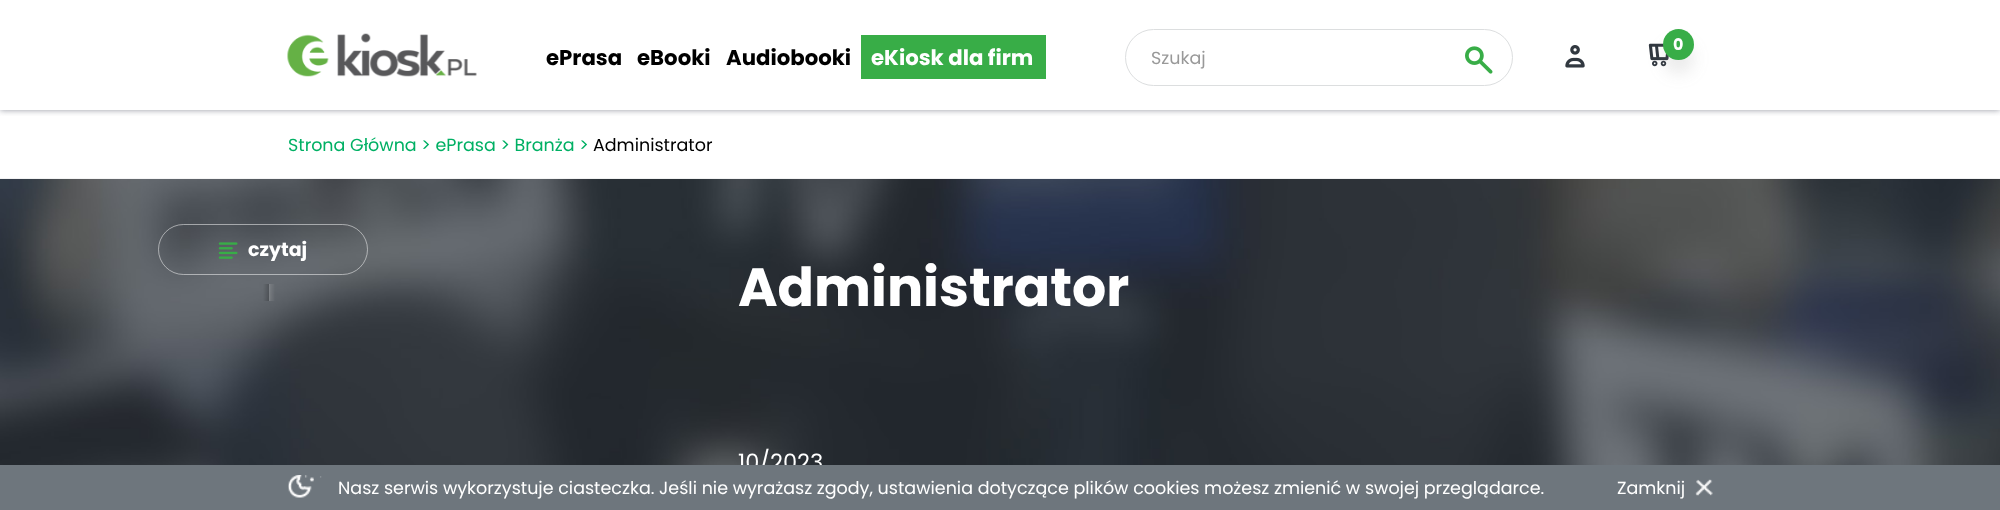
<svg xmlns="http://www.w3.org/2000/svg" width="2000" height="510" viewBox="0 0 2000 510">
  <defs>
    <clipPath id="clip1"><path d="M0 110h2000v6H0z"/></clipPath>
  </defs>
  <rect width="100%" height="100%" fill="#fff"/>
  <g clip-path="url(#clip1)">
    <path d="M0 0h2000v110H0z" fill="#797c8acc" filter="blur(3px)"/>
  </g>
  <image x="287" y="33" width="190" height="44" href="img/1.png"/>
  <path d="M861 35h185v44H861z" fill="#38ad47"/>
  <image x="1648" y="43" width="21" height="24" href="img/2.png"/>
  <rect x="1663" y="43" width="31" height="31" rx="15.5" fill="#79797926" filter="blur(8px)"/>
  <circle cx="1678.5" cy="44.5" r="15.5" fill="#38ad47"/>
  <rect x="1125.5" y="29.5" width="387" height="56" rx="28" fill="none" stroke="#dcdedf"/>
  <image x="1465" y="46" width="28" height="28" href="img/3.png"/>
  <image x="1565" y="45" width="20" height="23" href="img/4.png"/>
  <image x="0" y="178" width="2000" height="287" href="img/5.png"/>
  <rect x="158.5" y="224.5" width="209" height="50" rx="25" fill="none" stroke="#ffffff80"/>
  <image x="218" y="242" width="20" height="17" href="img/6.png"/>
  <g font-family="Poppins" font-size="21.25" font-weight="bold" fill="#000">
    <text x="546" y="65">ePrasa</text>
    <text x="637" y="65">eBooki</text>
    <text x="726" y="65">Audiobooki</text>
  </g>
  <text x="871" y="65" font-family="Poppins" font-size="21.25" font-weight="bold" fill="#fff">eKiosk dla firm</text>
  <text x="1673" y="50" font-family="Poppins" font-size="16" font-weight="bold" fill="#fff">0</text>
  <text x="1151" y="64" font-family="Poppins" font-size="17.5" fill="#999">Szukaj</text>
  <text x="288" y="151" font-family="Poppins" font-size="17.5" fill="#00b064">Strona Główna &gt; ePrasa &gt; Branża &gt;</text>
  <text x="593" y="151" font-family="Poppins" font-size="17.5" fill="#000">Administrator</text>
  <text x="248" y="256" font-family="Poppins" font-size="19" font-weight="bold" fill="#fff">czytaj</text>
  <text x="738" y="306" font-family="Poppins" font-size="53.75" font-weight="bold" fill="#fff">Administrator</text>
  <text x="738" y="470" font-family="Poppins" font-size="22.5" fill="#fff">10/2023</text>
  <path d="M0 465h2000v45H0z" fill="#6e767d"/>
  <image x="288" y="475" width="34" height="23" href="img/7.png"/>
  <text x="338" y="494" font-family="Poppins" font-size="17.5" fill="#fff">Nasz serwis wykorzystuje ciasteczka. Jeśli nie wyrażasz zgody, ustawienia dotyczące plików cookies możesz zmienić w swojej przeglądarce.</text>
  <image x="1695" y="479" width="18" height="17" href="img/8.png"/>
  <text x="1617" y="494" font-family="Poppins" font-size="17.5" fill="#fff">Zamknij</text>
</svg>
